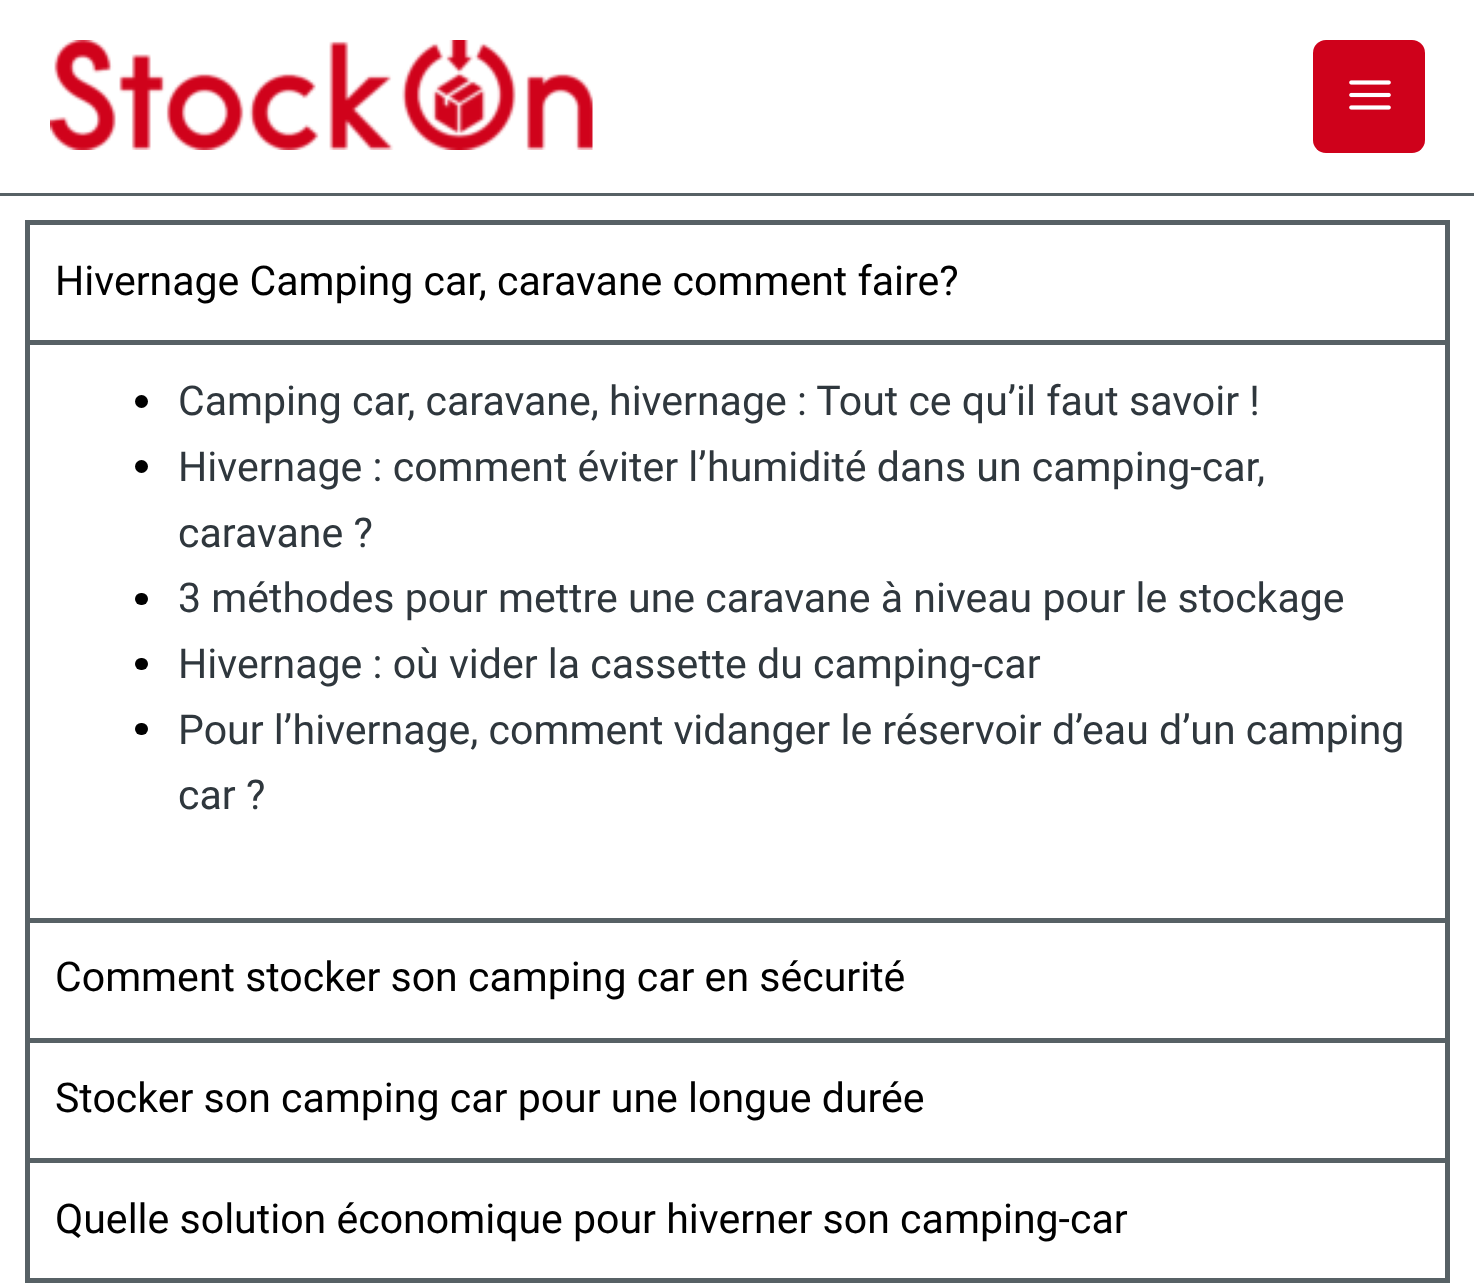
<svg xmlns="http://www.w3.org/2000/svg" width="1474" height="1285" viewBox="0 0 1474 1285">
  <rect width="100%" height="100%" fill="#fff"/>
  <path d="M0 193h1474v3H0z" fill="#576165"/>
  <image x="50" y="40" width="543" height="110" href="img/1.png"/>
  <rect x="1313" y="40" width="112" height="113" rx="13" fill="#cf011b"/>
  <image x="1349" y="80" width="42" height="30" href="img/2.png"/>
  <path d="M25 1278h1425v5H25z" fill="#576165"/>
  <path d="M25 220h1425v5H25z" fill="#576165"/>
  <path d="M1445 220h5v120H1445z" fill="#576165"/>
  <path d="M25 220h5v120H25z" fill="#576165"/>
  <path d="M25 340h1425v5H25z" fill="#576165"/>
  <path d="M1445 340h5v578H1445z" fill="#576165"/>
  <path d="M25 340h5v578H25z" fill="#576165"/>
  <circle cx="141.5" cy="401.5" r="6.5" fill="#000"/>
  <circle cx="141.5" cy="466.5" r="6.5" fill="#000"/>
  <rect x="135" y="593" width="13" height="12" rx="6" fill="#000"/>
  <rect x="135" y="658" width="13" height="12" rx="6" fill="#000"/>
  <rect x="135" y="723" width="13" height="12" rx="6" fill="#000"/>
  <path d="M25 918h1425v5H25z" fill="#576165"/>
  <path d="M1445 918h5v120H1445z" fill="#576165"/>
  <path d="M25 918h5v120H25z" fill="#576165"/>
  <path d="M25 1038h1425v5H25z" fill="#576165"/>
  <path d="M1445 1038h5v120H1445z" fill="#576165"/>
  <path d="M25 1038h5v120H25z" fill="#576165"/>
  <path d="M25 1158h1425v5H25z" fill="#576165"/>
  <path d="M1445 1158h5v120H1445z" fill="#576165"/>
  <path d="M25 1158h5v120H25z" fill="#576165"/>
  <text x="55" y="295" font-family="Roboto" font-size="41.05" fill="#000">Hivernage Camping car, caravane comment faire?</text>
  <g font-family="Roboto" font-size="41.05" fill="#2f373d">
    <text x="178" y="415">Camping car, caravane, hivernage : Tout ce qu’il faut savoir !</text>
    <text x="178" y="481">Hivernage : comment éviter l’humidité dans un camping-car,</text>
    <text x="178" y="547">caravane ?</text>
    <text x="178" y="612">3 méthodes pour mettre une caravane à niveau pour le stockage</text>
    <text x="178" y="678">Hivernage : où vider la cassette du camping-car</text>
    <text x="178" y="744">Pour l’hivernage, comment vidanger le réservoir d’eau d’un camping</text>
    <text x="178" y="809">car ?</text>
  </g>
  <g font-family="Roboto" font-size="41.05" fill="#000">
    <text x="55" y="991">Comment stocker son camping car en sécurité</text>
    <text x="55" y="1112">Stocker son camping car pour une longue durée</text>
    <text x="55" y="1233">Quelle solution économique pour hiverner son camping-car</text>
  </g>
</svg>
